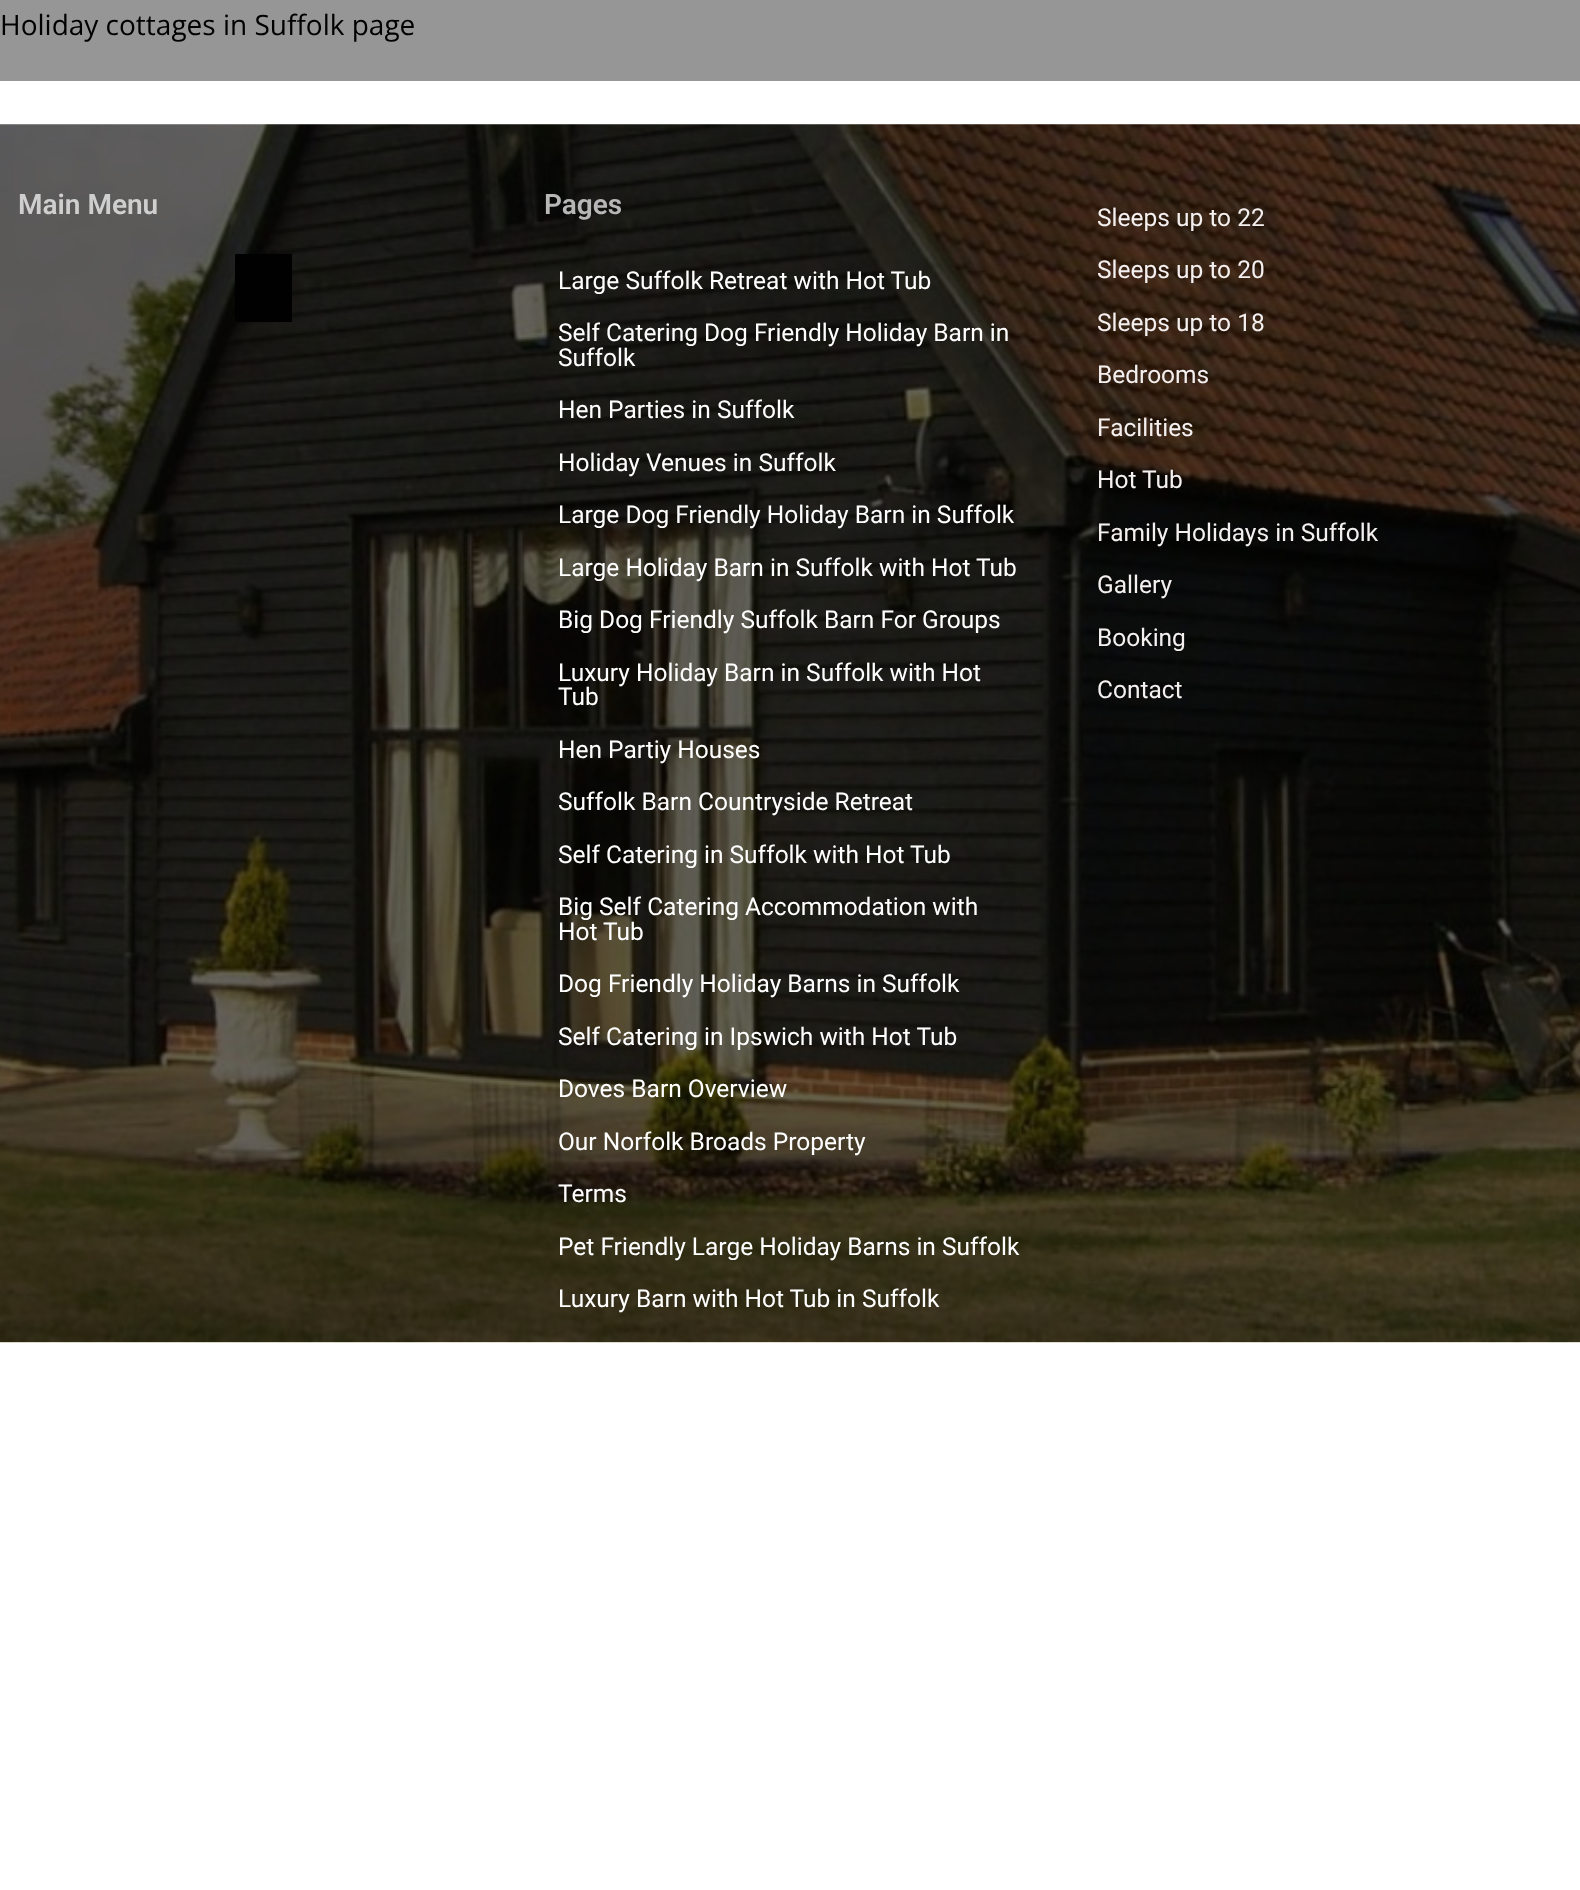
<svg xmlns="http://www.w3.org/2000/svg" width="1580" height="1890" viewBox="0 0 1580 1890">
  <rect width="100%" height="100%" fill="#fff"/>
  <path d="M0 0h1580v81H0z" fill="#969696"/>
  <image x="0" y="124" width="1580" height="1219" href="img/1.png"/>
  <path d="M235 254h57v68H235z" fill="#010101"/>
  <text x="0" y="35" font-family="Open Sans" font-size="28" fill="#000">Holiday cottages in Suffolk page</text>
  <text x="18" y="214" font-family="Roboto" font-size="28" font-weight="600" fill="#cfcfcf">Main Menu</text>
  <text x="544" y="214" font-family="Roboto" font-size="28" font-weight="600" fill="#b7b7b7">Pages</text>
  <g font-family="Roboto" font-size="24.5" fill="#fff">
    <text x="558" y="289">Large Suffolk Retreat with Hot Tub</text>
    <text x="558" y="341">Self Catering Dog Friendly Holiday Barn in</text>
    <text x="558" y="366">Suffolk</text>
    <text x="558" y="418">Hen Parties in Suffolk</text>
    <text x="558" y="471">Holiday Venues in Suffolk</text>
    <text x="558" y="523">Large Dog Friendly Holiday Barn in Suffolk</text>
    <text x="558" y="576">Large Holiday Barn in Suffolk with Hot Tub</text>
    <text x="558" y="628">Big Dog Friendly Suffolk Barn For Groups</text>
    <text x="558" y="681">Luxury Holiday Barn in Suffolk with Hot</text>
    <text x="558" y="705">Tub</text>
    <text x="558" y="758">Hen Partiy Houses</text>
    <text x="558" y="810">Suffolk Barn Countryside Retreat</text>
    <text x="558" y="863">Self Catering in Suffolk with Hot Tub</text>
    <text x="558" y="915">Big Self Catering Accommodation with</text>
    <text x="558" y="940">Hot Tub</text>
    <text x="558" y="992">Dog Friendly Holiday Barns in Suffolk</text>
    <text x="558" y="1045">Self Catering in Ipswich with Hot Tub</text>
    <text x="558" y="1097">Doves Barn Overview</text>
    <text x="558" y="1150">Our Norfolk Broads Property</text>
    <text x="558" y="1202">Terms</text>
    <text x="558" y="1255">Pet Friendly Large Holiday Barns in Suffolk</text>
    <text x="558" y="1307">Luxury Barn with Hot Tub in Suffolk</text>
  </g>
  <g font-family="Roboto" font-size="24.5" fill="#f5f0f0">
    <text x="1097" y="226">Sleeps up to 22</text>
    <text x="1097" y="278">Sleeps up to 20</text>
    <text x="1097" y="331">Sleeps up to 18</text>
    <text x="1097" y="383">Bedrooms</text>
    <text x="1097" y="436">Facilities</text>
    <text x="1097" y="488">Hot Tub</text>
    <text x="1097" y="541">Family Holidays in Suffolk</text>
    <text x="1097" y="593">Gallery</text>
    <text x="1097" y="646">Booking</text>
    <text x="1097" y="698">Contact</text>
  </g>
</svg>
